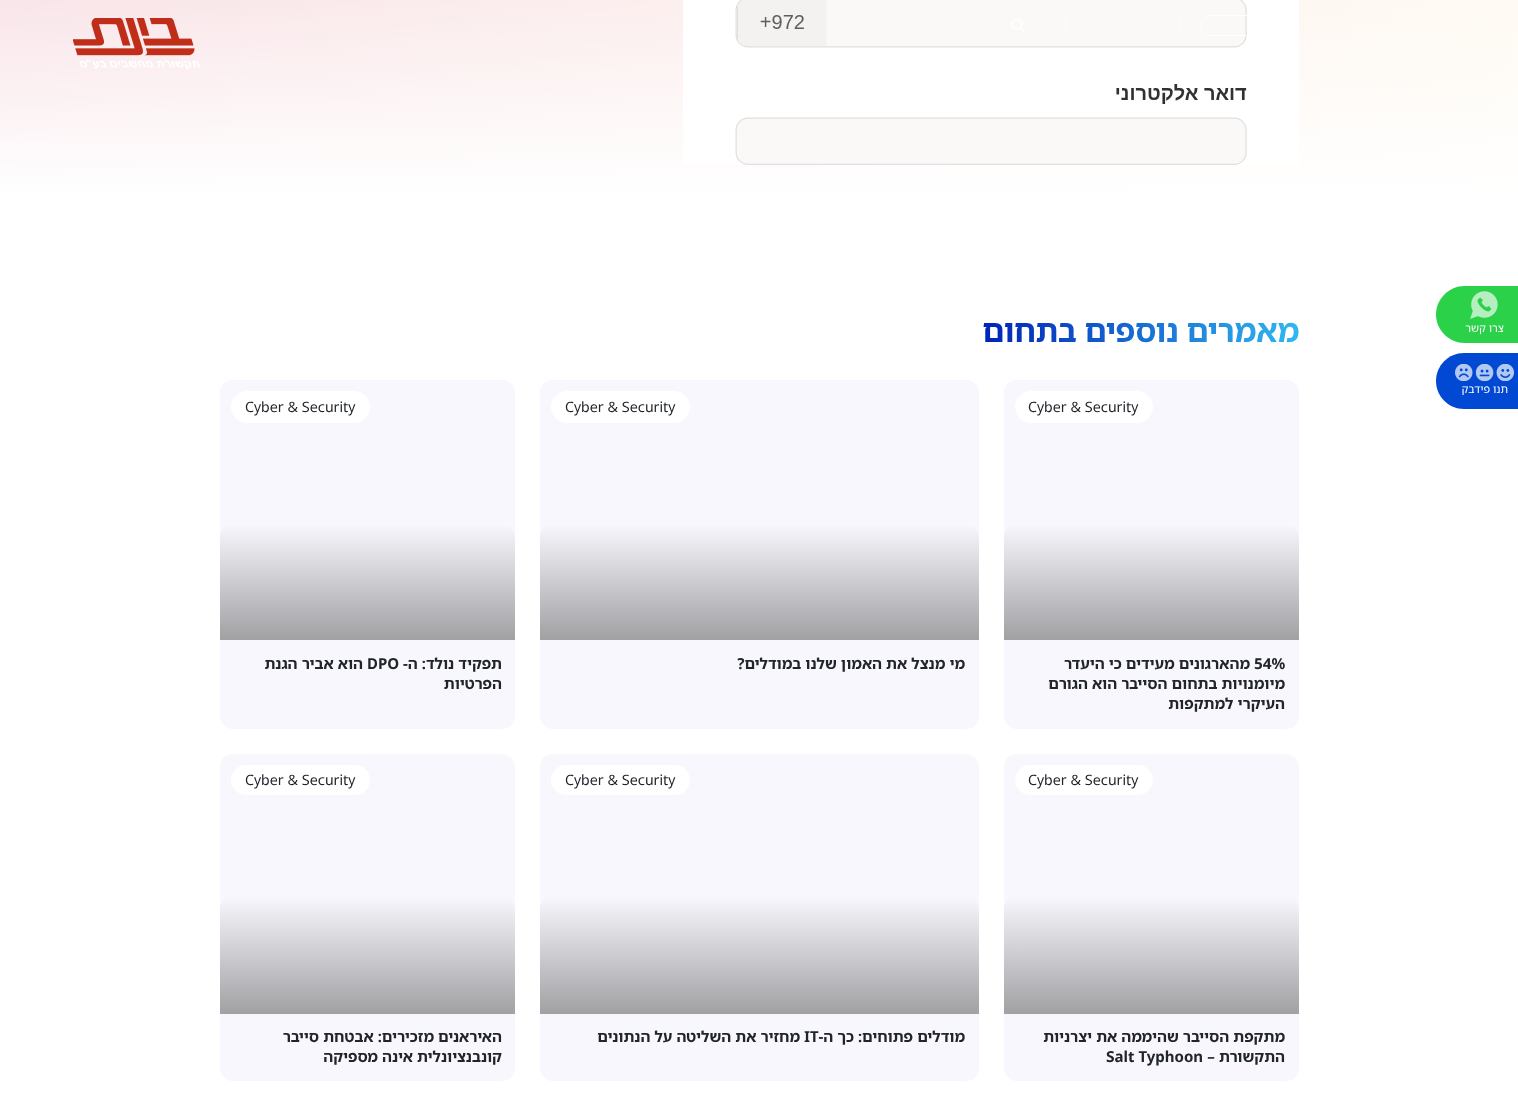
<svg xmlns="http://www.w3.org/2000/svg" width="1518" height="1100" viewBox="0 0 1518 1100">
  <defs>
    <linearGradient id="g1" gradientUnits="userSpaceOnUse" x1="983" y1="331" x2="1299" y2="331"><stop offset="0" stop-color="#0023b7"/><stop offset="1" stop-color="#30b8f0"/></linearGradient>
    <linearGradient id="g2" gradientUnits="userSpaceOnUse" x1="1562" y1="-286" x2="-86" y2="-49"><stop offset="0.04" stop-color="#fff9ee"/><stop offset="1" stop-color="#f6d8df"/></linearGradient>
    <linearGradient id="g3" gradientUnits="userSpaceOnUse" x1="759" y1="250" x2="759" y2="-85"><stop offset="0.16" stop-color="#fff"/><stop offset="1" stop-color="#fff" stop-opacity="0"/></linearGradient>
    <linearGradient id="g4" gradientUnits="userSpaceOnUse" x1="1151" y1="640" x2="1151" y2="524"><stop offset="0" stop-color="#a1a1a4"/><stop offset="1" stop-color="#f7f7fd"/></linearGradient>
    <linearGradient id="g5" gradientUnits="userSpaceOnUse" x1="759" y1="640" x2="759" y2="524"><stop offset="0" stop-color="#a1a1a4"/><stop offset="1" stop-color="#f7f7fd"/></linearGradient>
    <linearGradient id="g6" gradientUnits="userSpaceOnUse" x1="368" y1="640" x2="368" y2="524"><stop offset="0" stop-color="#a1a1a4"/><stop offset="1" stop-color="#f7f7fd"/></linearGradient>
    <linearGradient id="g7" gradientUnits="userSpaceOnUse" x1="1151" y1="1014" x2="1151" y2="896"><stop offset="0" stop-color="#a1a1a4"/><stop offset="1" stop-color="#f7f7fd"/></linearGradient>
    <linearGradient id="g8" gradientUnits="userSpaceOnUse" x1="759" y1="1014" x2="759" y2="896"><stop offset="0" stop-color="#a1a1a4"/><stop offset="1" stop-color="#f7f7fd"/></linearGradient>
    <linearGradient id="g9" gradientUnits="userSpaceOnUse" x1="368" y1="1014" x2="368" y2="896"><stop offset="0" stop-color="#a1a1a4"/><stop offset="1" stop-color="#f7f7fd"/></linearGradient>
  </defs>
  <rect width="100%" height="100%" fill="#fff"/>
  <path d="M0 0h1518v195H0z" fill="url(#g2)"/>
  <path d="M0 0h1518v195H0z" fill="url(#g3)"/>
  <image x="683" y="0" width="616" height="165" href="img/1.png"/>
  <rect x="1200.5" y="15.5" width="90" height="20" rx="10" fill="none" stroke="#fff"/>
  <path d="M1179 18h1v16H1179z" fill="#fdfcfc"/>
  <path d="M1065 18h1v16H1065z" fill="#fdfcfc"/>
  <image x="1011" y="19" width="14" height="13" href="img/2.png"/>
  <image x="1372" y="67" width="7" height="4" href="img/3.png"/>
  <image x="73" y="18" width="127" height="52" href="img/4.png"/>
  <path d="M1464.5 286H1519V343H1464.5C1449 343 1436 330 1436 314.5C1436 299 1449 286 1464.5 286Z" fill="#2cd14a"/>
  <image x="1470" y="291" width="28" height="28" href="img/5.png"/>
  <path d="M1464 353H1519V409H1464C1448.5 409 1436 396.5 1436 381C1436 365.5 1448.5 353 1464 353Z" fill="#0149d3"/>
  <image x="1455" y="364" width="59" height="17" href="img/6.png"/>
  <rect x="1004" y="380" width="295" height="349" rx="13" fill="#f7f7fd"/>
  <rect x="1015" y="391" width="138" height="32" rx="16" fill="#fff"/>
  <path d="M1017 524H1286C1293 524 1299 530 1299 537V640H1004V537C1004 530 1010 524 1017 524Z" fill="url(#g4)"/>
  <rect x="540" y="380" width="439" height="349" rx="13" fill="#f7f7fd"/>
  <rect x="551" y="391" width="139" height="32" rx="16" fill="#fff"/>
  <path d="M553 524H966C973 524 979 530 979 537V640H540V537C540 530 546 524 553 524Z" fill="url(#g5)"/>
  <rect x="220" y="380" width="295" height="349" rx="13" fill="#f7f7fd"/>
  <rect x="231" y="391" width="139" height="32" rx="16" fill="#fff"/>
  <path d="M233 524H502C509 524 515 530 515 537V640H220V537C220 530 226 524 233 524Z" fill="url(#g6)"/>
  <rect x="1004" y="754" width="295" height="327" rx="13" fill="#f7f7fd"/>
  <rect x="1015" y="765" width="138" height="30" rx="15" fill="#fff"/>
  <path d="M1017 896H1286C1293 896 1299 902 1299 909V1014H1004V909C1004 902 1010 896 1017 896Z" fill="url(#g7)"/>
  <rect x="540" y="754" width="439" height="327" rx="13" fill="#f7f7fd"/>
  <rect x="551" y="765" width="139" height="30" rx="15" fill="#fff"/>
  <path d="M553 896H966C973 896 979 902 979 909V1014H540V909C540 902 546 896 553 896Z" fill="url(#g8)"/>
  <rect x="220" y="754" width="295" height="327" rx="13" fill="#f7f7fd"/>
  <rect x="231" y="765" width="139" height="30" rx="15" fill="#fff"/>
  <path d="M233 896H502C509 896 515 902 515 909V1014H220V909C220 902 226 896 233 896Z" fill="url(#g9)"/>
  <g font-family="Noto Sans Hebrew" font-size="11" direction="rtl" fill="#fff">
    <text x="1504" y="332">צרו קשר</text>
    <text x="1508" y="393">תנו פידבק</text>
  </g>
  <text x="1299" y="342" font-family="Noto Sans Hebrew" font-size="31.5" font-weight="bold" letter-spacing="-0.3" direction="rtl" fill="url(#g1)">מאמרים נוספים בתחום</text>
  <text x="1028" y="412" font-family="Noto Sans Hebrew" font-size="14.25" fill="#212529">Cyber &amp; Security</text>
  <text x="1254" y="669" font-family="Noto Sans Hebrew" font-size="15.1" font-weight="bold" fill="#212529">54%</text>
  <g font-family="Noto Sans Hebrew" font-size="15.1" font-weight="bold" direction="rtl" fill="#212529">
    <text x="1250" y="669">מהארגונים מעידים כי היעדר</text>
    <text x="1285" y="689">מיומנויות בתחום הסייבר הוא הגורם</text>
    <text x="1285" y="709">העיקרי למתקפות</text>
  </g>
  <text x="565" y="412" font-family="Noto Sans Hebrew" font-size="14.25" fill="#212529">Cyber &amp; Security</text>
  <text x="965" y="669" font-family="Noto Sans Hebrew" font-size="15.1" font-weight="bold" direction="rtl" fill="#212529">מי מנצל את האמון שלנו במודלים?</text>
  <text x="245" y="412" font-family="Noto Sans Hebrew" font-size="14.25" fill="#212529">Cyber &amp; Security</text>
  <text x="502" y="669" font-family="Noto Sans Hebrew" font-size="15.1" font-weight="bold" direction="rtl" fill="#212529">תפקיד נולד: ה-</text>
  <text x="367" y="669" font-family="Noto Sans Hebrew" font-size="15.1" font-weight="bold" fill="#212529">DPO</text>
  <g font-family="Noto Sans Hebrew" font-size="15.1" font-weight="bold" direction="rtl" fill="#212529">
    <text x="363" y="669">הוא אביר הגנת</text>
    <text x="502" y="689">הפרטיות</text>
  </g>
  <text x="1028" y="785" font-family="Noto Sans Hebrew" font-size="14.25" fill="#212529">Cyber &amp; Security</text>
  <g font-family="Noto Sans Hebrew" font-size="15.1" font-weight="bold" direction="rtl" fill="#212529">
    <text x="1285" y="1042">מתקפת הסייבר שהיממה את יצרניות</text>
    <text x="1285" y="1062">התקשורת –</text>
  </g>
  <text x="1106" y="1062" font-family="Noto Sans Hebrew" font-size="15.1" font-weight="bold" fill="#212529">Salt Typhoon</text>
  <text x="565" y="785" font-family="Noto Sans Hebrew" font-size="14.25" fill="#212529">Cyber &amp; Security</text>
  <text x="965" y="1042" font-family="Noto Sans Hebrew" font-size="15.1" font-weight="bold" direction="rtl" fill="#212529">מודלים פתוחים: כך ה-</text>
  <text x="804" y="1042" font-family="Noto Sans Hebrew" font-size="15.1" font-weight="bold" fill="#212529">IT</text>
  <text x="800" y="1042" font-family="Noto Sans Hebrew" font-size="15.1" font-weight="bold" direction="rtl" fill="#212529">מחזיר את השליטה על הנתונים</text>
  <text x="245" y="785" font-family="Noto Sans Hebrew" font-size="14.25" fill="#212529">Cyber &amp; Security</text>
  <g font-family="Noto Sans Hebrew" font-size="15.1" font-weight="bold" direction="rtl" fill="#212529">
    <text x="502" y="1042">האיראנים מזכירים: אבטחת סייבר</text>
    <text x="502" y="1062">קונבנציונלית אינה מספיקה</text>
  </g>
</svg>
